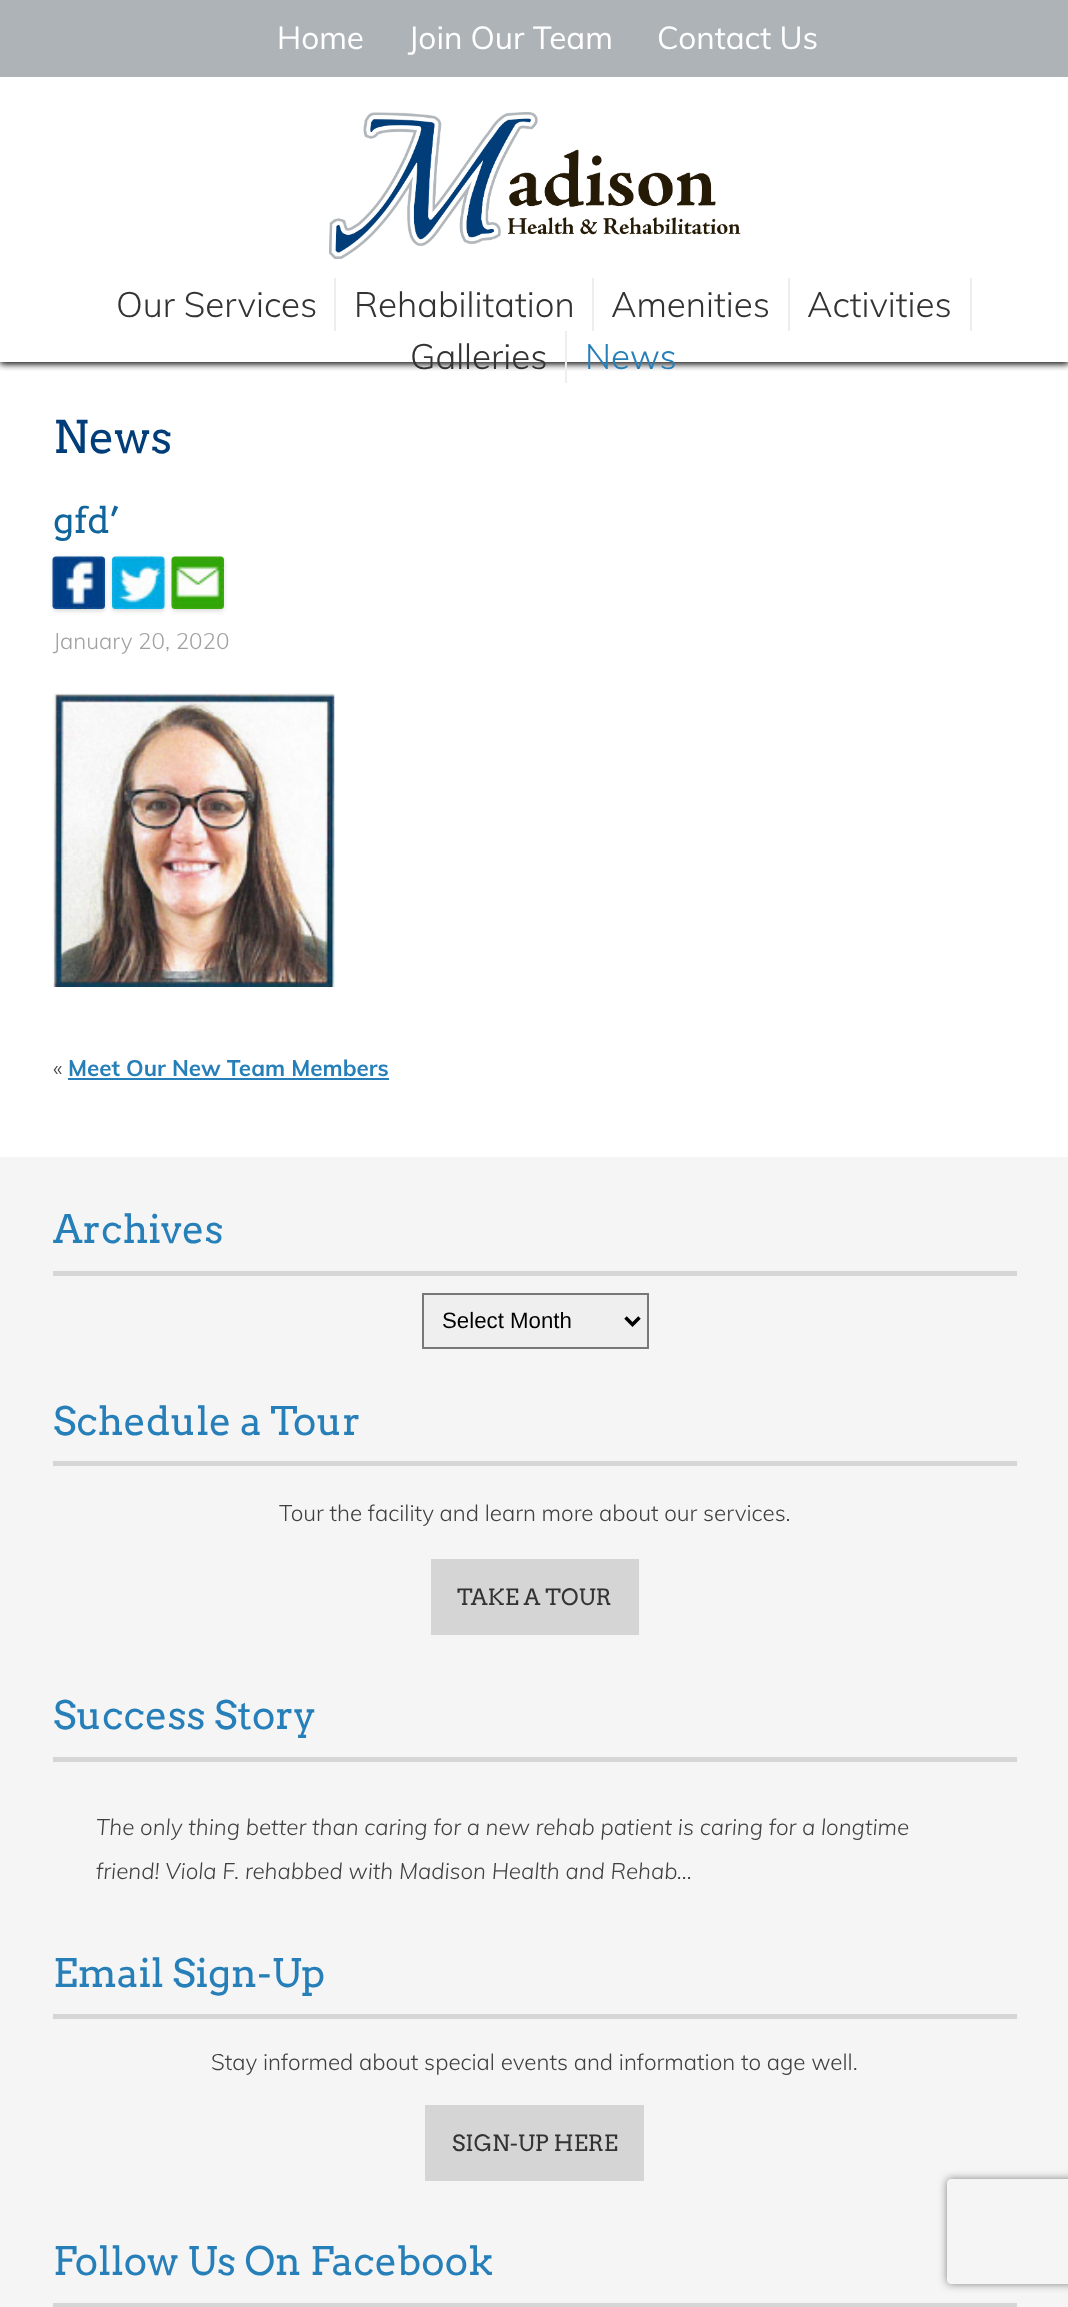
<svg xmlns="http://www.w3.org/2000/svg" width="1068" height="2307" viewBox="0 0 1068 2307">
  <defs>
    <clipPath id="clip1"><path d="M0 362h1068v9H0z"/></clipPath>
    <clipPath id="clip2"><path d="M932 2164H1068V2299H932ZM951 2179H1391C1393 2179 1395 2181 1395 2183V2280C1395 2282 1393 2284 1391 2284H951C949 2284 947 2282 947 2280V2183C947 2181 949 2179 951 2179Z" clip-rule="evenodd"/></clipPath>
  </defs>
  <rect width="100%" height="100%" fill="#fff"/>
  <g clip-path="url(#clip1)">
    <path d="M0 2h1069v362H0z" fill="#000" filter="blur(3.5px)"/>
  </g>
  <path d="M0 0h1068v77H0z" fill="#aeb3b8"/>
  <image x="329" y="112" width="412" height="147" href="img/1.png"/>
  <path d="M334 278h2v53H334z" fill="#eee"/>
  <path d="M592 278h2v53H592z" fill="#eee"/>
  <path d="M788 278h2v53H788z" fill="#eee"/>
  <path d="M970 278h2v53H970z" fill="#eee"/>
  <path d="M565 331h2v52H565z" fill="#eee"/>
  <rect x="53" y="558" width="52" height="53" rx="4" fill="#00000026" filter="blur(2px)"/>
  <image x="52" y="556" width="53" height="53" href="img/2.png"/>
  <rect x="112" y="558" width="53" height="53" rx="4" fill="#00000026" filter="blur(2px)"/>
  <image x="112" y="556" width="53" height="53" href="img/3.png"/>
  <rect x="172" y="558" width="52" height="53" rx="4" fill="#00000026" filter="blur(2px)"/>
  <image x="171" y="556" width="53" height="53" href="img/4.png"/>
  <image x="52" y="693" width="283" height="294" href="img/5.png"/>
  <path d="M68 1078h321v2H68z" fill="#267fb8"/>
  <path d="M0 1157h1068v1150H0z" fill="#f5f5f5"/>
  <path d="M53 1271h964v5H53z" fill="#d6d6d6"/>
  <path d="M423 1294h225v54H423z" fill="#efefef" stroke="#787878" stroke-width="2"/>
  <path d="M625.5 1317.5L632.5 1324.5L639.5 1317.5" fill="none" stroke="#000" stroke-width="3.5"/>
  <path d="M53 1461h964v5H53z" fill="#d6d6d6"/>
  <path d="M431 1559h208v76H431z" fill="#d5d5d5"/>
  <path d="M53 1757h964v5H53z" fill="#d6d6d6"/>
  <path d="M53 2014h964v5H53z" fill="#d6d6d6"/>
  <path d="M425 2105h219v76H425z" fill="#d5d5d5"/>
  <path d="M53 2303h964v4H53z" fill="#d6d6d6"/>
  <g clip-path="url(#clip2)">
    <rect x="947" y="2179" width="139" height="105" rx="4" fill="#808080" filter="blur(4.5px)"/>
  </g>
  <g font-family="Muli" font-size="31.5" fill="#fff">
    <text x="277" y="49">Home</text>
    <text x="408" y="49">Join Our Team</text>
    <text x="657" y="49">Contact Us</text>
  </g>
  <g font-family="Muli" font-size="35" font-weight="300" fill="#333">
    <text x="116" y="317">Our Services</text>
    <text x="354" y="317">Rehabilitation</text>
    <text x="611" y="317">Amenities</text>
    <text x="807" y="317">Activities</text>
    <text x="410" y="369">Galleries</text>
  </g>
  <text x="585" y="369" font-family="Muli" font-size="35" font-weight="300" fill="#267fb8">News</text>
  <text x="53" y="453" font-family="Arvo" font-size="45" fill="#003d79">News</text>
  <text x="53" y="533" font-family="Arvo" font-size="36" fill="#0f659c">gfd’</text>
  <text x="53" y="649" font-family="Muli" font-size="22.4" font-weight="300" fill="#a0a0a0">January 20, 2020</text>
  <text x="53" y="1076" font-family="Muli" font-size="22.4" font-weight="300" fill="#404040">«</text>
  <text x="68" y="1076" font-family="Muli" font-size="22.4" font-weight="bold" fill="#267fb8">Meet Our New Team Members</text>
  <text x="53" y="1243" font-family="Arvo" font-size="39.25" fill="#267fb8">Archives</text>
  <text x="442" y="1328" font-family="Liberation Sans" font-size="22.25" fill="#000">Select Month</text>
  <text x="53" y="1435" font-family="Arvo" font-size="39.25" fill="#267fb8">Schedule a Tour</text>
  <text x="279" y="1521" font-family="Muli" font-size="22.4" font-weight="300" fill="#404040">Tour the facility and learn more about our services.</text>
  <text x="457" y="1605" font-family="Arvo" font-size="22.4" fill="#333">TAKE A TOUR</text>
  <text x="53" y="1729" font-family="Arvo" font-size="39.25" fill="#267fb8">Success Story</text>
  <g font-family="Muli" font-size="22.4" font-weight="300" font-style="italic" fill="#404040">
    <text x="96" y="1835">The only thing better than caring for a new rehab patient is caring for a longtime</text>
    <text x="96" y="1879">friend! Viola F. rehabbed with Madison Health and Rehab…</text>
  </g>
  <text x="53" y="1987" font-family="Arvo" font-size="39.25" fill="#267fb8">Email Sign-Up</text>
  <text x="211" y="2070" font-family="Muli" font-size="22.4" font-weight="300" fill="#404040">Stay informed about special events and information to age well.</text>
  <text x="452" y="2151" font-family="Arvo" font-size="22.4" fill="#333">SIGN-UP HERE</text>
  <text x="53" y="2275" font-family="Arvo" font-size="39.25" fill="#267fb8">Follow Us On Facebook</text>
</svg>
